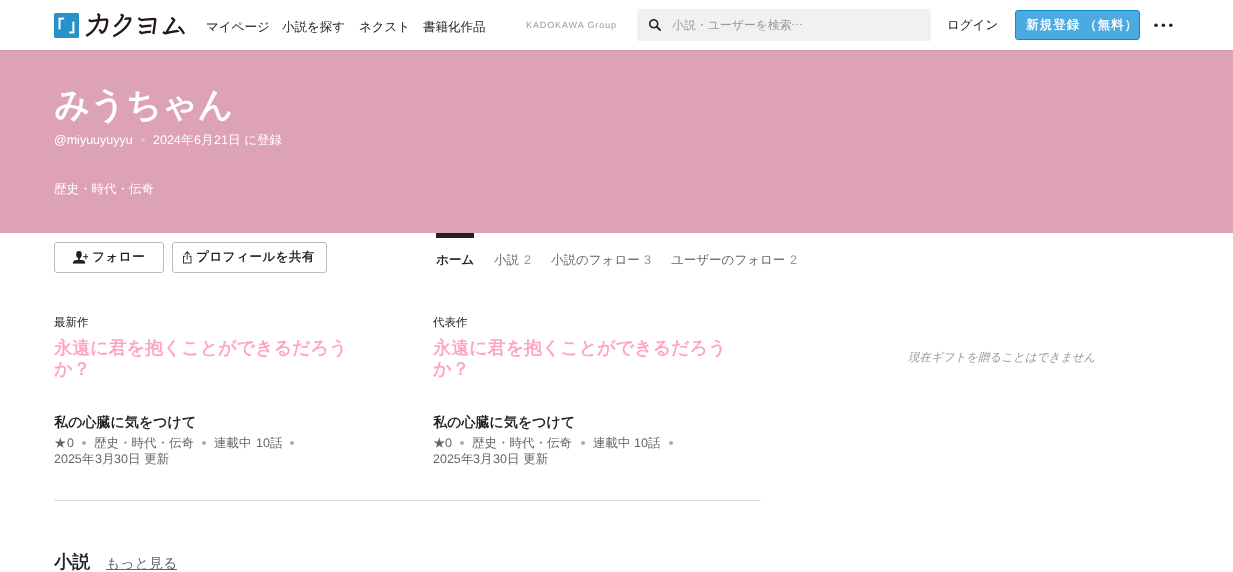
<svg xmlns="http://www.w3.org/2000/svg" width="1233" height="572" viewBox="0 0 1233 572">
  <rect width="100%" height="100%" fill="#fff"/>
  <path d="M0 50h1233v1H0z" fill="#d39aaf"/>
  <image x="54" y="13" width="131" height="25" href="img/1.png"/>
  <path d="M637 9h294v32H637z" fill="#f2f1f0"/>
  <image x="649" y="19" width="12" height="12" href="img/2.png"/>
  <image x="792" y="23" width="10" height="3" href="img/3.png"/>
  <rect x="1015.5" y="10.5" width="124" height="29" rx="2.5" fill="#4baae0" stroke="#0990cc"/>
  <circle cx="1156" cy="25.2" r="1.8" fill="#222"/>
  <circle cx="1163.4" cy="25.2" r="1.8" fill="#222"/>
  <circle cx="1170.8" cy="25.2" r="1.8" fill="#222"/>
  <path d="M0 51h1233v182H0z" fill="#dea2b8"/>
  <circle cx="143" cy="140" r="2" fill="#e8becd"/>
  <rect x="54.5" y="242.5" width="109" height="30" rx="2.5" fill="none" stroke="#bbb"/>
  <image x="73" y="251" width="15" height="13" href="img/4.png"/>
  <rect x="172.5" y="242.5" width="154" height="30" rx="2.5" fill="none" stroke="#bbb"/>
  <image x="183" y="251" width="9" height="13" href="img/5.png"/>
  <path d="M436 233h38v5H436z" fill="#222"/>
  <path d="M54 500h707v1H54z" fill="#ddd"/>
  <circle cx="84" cy="443" r="2" fill="#aaa"/>
  <circle cx="204" cy="443" r="2" fill="#aaa"/>
  <circle cx="292" cy="443" r="2" fill="#aaa"/>
  <circle cx="462" cy="443" r="2" fill="#aaa"/>
  <circle cx="583" cy="443" r="2" fill="#aaa"/>
  <circle cx="671" cy="443" r="2" fill="#aaa"/>
  <path d="M106 569h71v1H106z" fill="#666"/>
  <g font-family="WenQuanYi Zen Hei" font-size="12.5" font-weight="500" fill="#222">
    <text x="206" y="31">マイページ</text>
    <text x="282" y="31">小説を探す</text>
    <text x="359" y="31">ネクスト</text>
    <text x="423" y="31">書籍化作品</text>
  </g>
  <text x="526" y="28" font-family="Liberation Sans" font-size="9" letter-spacing="0.9" fill="#999">KADOKAWA Group</text>
  <text x="672" y="29" font-family="WenQuanYi Zen Hei" font-size="11.9" font-weight="500" fill="#999">小説・ユーザーを検索</text>
  <text x="947" y="29" font-family="WenQuanYi Zen Hei" font-size="12.5" font-weight="500" fill="#222">ログイン</text>
  <g font-family="WenQuanYi Zen Hei" font-size="12.5" font-weight="bold" letter-spacing="1" fill="#fff">
    <text x="1026" y="29">新規登録</text>
    <text x="1084" y="29">（無料）</text>
  </g>
  <text x="54" y="117" font-family="WenQuanYi Zen Hei" font-size="35" font-weight="bold" fill="#fff">みうちゃん</text>
  <g font-family="Liberation Sans" font-size="12.5" fill="#fff">
    <text x="54" y="144">@miyuuyuyyu</text>
    <text x="153" y="144">2024</text>
  </g>
  <text x="181" y="144" font-family="WenQuanYi Zen Hei" font-size="12.5" font-weight="500" fill="#fff">年</text>
  <text x="194" y="144" font-family="Liberation Sans" font-size="12.5" fill="#fff">6</text>
  <text x="201" y="144" font-family="WenQuanYi Zen Hei" font-size="12.5" font-weight="500" fill="#fff">月</text>
  <text x="214" y="144" font-family="Liberation Sans" font-size="12.5" fill="#fff">21</text>
  <g font-family="WenQuanYi Zen Hei" font-size="12.5" font-weight="500" fill="#fff">
    <text x="228" y="144">日 に登録</text>
    <text x="54" y="193">歴史・時代・伝奇</text>
  </g>
  <g font-family="WenQuanYi Zen Hei" font-size="12.5" font-weight="bold" letter-spacing="0.5" fill="#222">
    <text x="92" y="261">フォロー</text>
    <text x="196" y="261">プロフィールを共有</text>
  </g>
  <text x="436" y="264" font-family="WenQuanYi Zen Hei" font-size="12.5" font-weight="bold" fill="#222">ホーム</text>
  <text x="494" y="264" font-family="WenQuanYi Zen Hei" font-size="12.5" font-weight="500" fill="#666">小説</text>
  <text x="524" y="264" font-family="Liberation Sans" font-size="12.5" fill="#999">2</text>
  <text x="551" y="264" font-family="WenQuanYi Zen Hei" font-size="12.5" font-weight="500" fill="#666">小説のフォロー</text>
  <text x="644" y="264" font-family="Liberation Sans" font-size="12.5" fill="#999">3</text>
  <text x="671" y="264" font-family="WenQuanYi Zen Hei" font-size="12.5" font-weight="500" fill="#666">ユーザーのフォロー</text>
  <text x="790" y="264" font-family="Liberation Sans" font-size="12.5" fill="#999">2</text>
  <text x="54" y="326" font-family="WenQuanYi Zen Hei" font-size="11.5" font-weight="500" fill="#222">最新作</text>
  <g font-family="WenQuanYi Zen Hei" font-size="18" font-weight="bold" fill="#ffa3c5">
    <text x="54" y="354">永遠に君を抱くことができるだろう</text>
    <text x="54" y="375">か？</text>
  </g>
  <text x="54" y="427" font-family="WenQuanYi Zen Hei" font-size="14" font-weight="bold" fill="#222">私の心臓に気をつけて</text>
  <text x="54" y="447" font-family="WenQuanYi Zen Hei" font-size="12.5" font-weight="500" fill="#666">★</text>
  <text x="67" y="447" font-family="Liberation Sans" font-size="12.5" fill="#666">0</text>
  <g font-family="WenQuanYi Zen Hei" font-size="12.5" font-weight="500" fill="#666">
    <text x="94" y="447">歴史・時代・伝奇</text>
    <text x="214" y="447">連載中</text>
  </g>
  <text x="256" y="447" font-family="Liberation Sans" font-size="12.5" fill="#666">10</text>
  <text x="270" y="447" font-family="WenQuanYi Zen Hei" font-size="12.5" font-weight="500" fill="#666">話</text>
  <text x="54" y="463" font-family="Liberation Sans" font-size="12.5" fill="#666">2025</text>
  <text x="82" y="463" font-family="WenQuanYi Zen Hei" font-size="12.5" font-weight="500" fill="#666">年</text>
  <text x="95" y="463" font-family="Liberation Sans" font-size="12.5" fill="#666">3</text>
  <text x="102" y="463" font-family="WenQuanYi Zen Hei" font-size="12.5" font-weight="500" fill="#666">月</text>
  <text x="114" y="463" font-family="Liberation Sans" font-size="12.5" fill="#666">30</text>
  <text x="128" y="463" font-family="WenQuanYi Zen Hei" font-size="12.5" font-weight="500" fill="#666">日 更新</text>
  <text x="433" y="326" font-family="WenQuanYi Zen Hei" font-size="11.5" font-weight="500" fill="#222">代表作</text>
  <g font-family="WenQuanYi Zen Hei" font-size="18" font-weight="bold" fill="#ffa3c5">
    <text x="433" y="354">永遠に君を抱くことができるだろう</text>
    <text x="433" y="375">か？</text>
  </g>
  <text x="433" y="427" font-family="WenQuanYi Zen Hei" font-size="14" font-weight="bold" fill="#222">私の心臓に気をつけて</text>
  <text x="433" y="447" font-family="WenQuanYi Zen Hei" font-size="12.5" font-weight="500" fill="#666">★</text>
  <text x="445" y="447" font-family="Liberation Sans" font-size="12.5" fill="#666">0</text>
  <g font-family="WenQuanYi Zen Hei" font-size="12.5" font-weight="500" fill="#666">
    <text x="472" y="447">歴史・時代・伝奇</text>
    <text x="593" y="447">連載中</text>
  </g>
  <text x="634" y="447" font-family="Liberation Sans" font-size="12.5" fill="#666">10</text>
  <text x="648" y="447" font-family="WenQuanYi Zen Hei" font-size="12.5" font-weight="500" fill="#666">話</text>
  <text x="433" y="463" font-family="Liberation Sans" font-size="12.5" fill="#666">2025</text>
  <text x="461" y="463" font-family="WenQuanYi Zen Hei" font-size="12.5" font-weight="500" fill="#666">年</text>
  <text x="473" y="463" font-family="Liberation Sans" font-size="12.5" fill="#666">3</text>
  <text x="480" y="463" font-family="WenQuanYi Zen Hei" font-size="12.5" font-weight="500" fill="#666">月</text>
  <text x="493" y="463" font-family="Liberation Sans" font-size="12.5" fill="#666">30</text>
  <text x="507" y="463" font-family="WenQuanYi Zen Hei" font-size="12.5" font-weight="500" fill="#666">日 更新</text>
  <text x="908" y="361" font-family="WenQuanYi Zen Hei" font-size="11.5" font-weight="500" font-style="italic" fill="#999">現在ギフトを贈ることはできません</text>
  <text x="54" y="568" font-family="WenQuanYi Zen Hei" font-size="18" font-weight="bold" fill="#222">小説</text>
  <text x="106" y="568" font-family="WenQuanYi Zen Hei" font-size="14" font-weight="500" fill="#666">もっと見る</text>
</svg>
